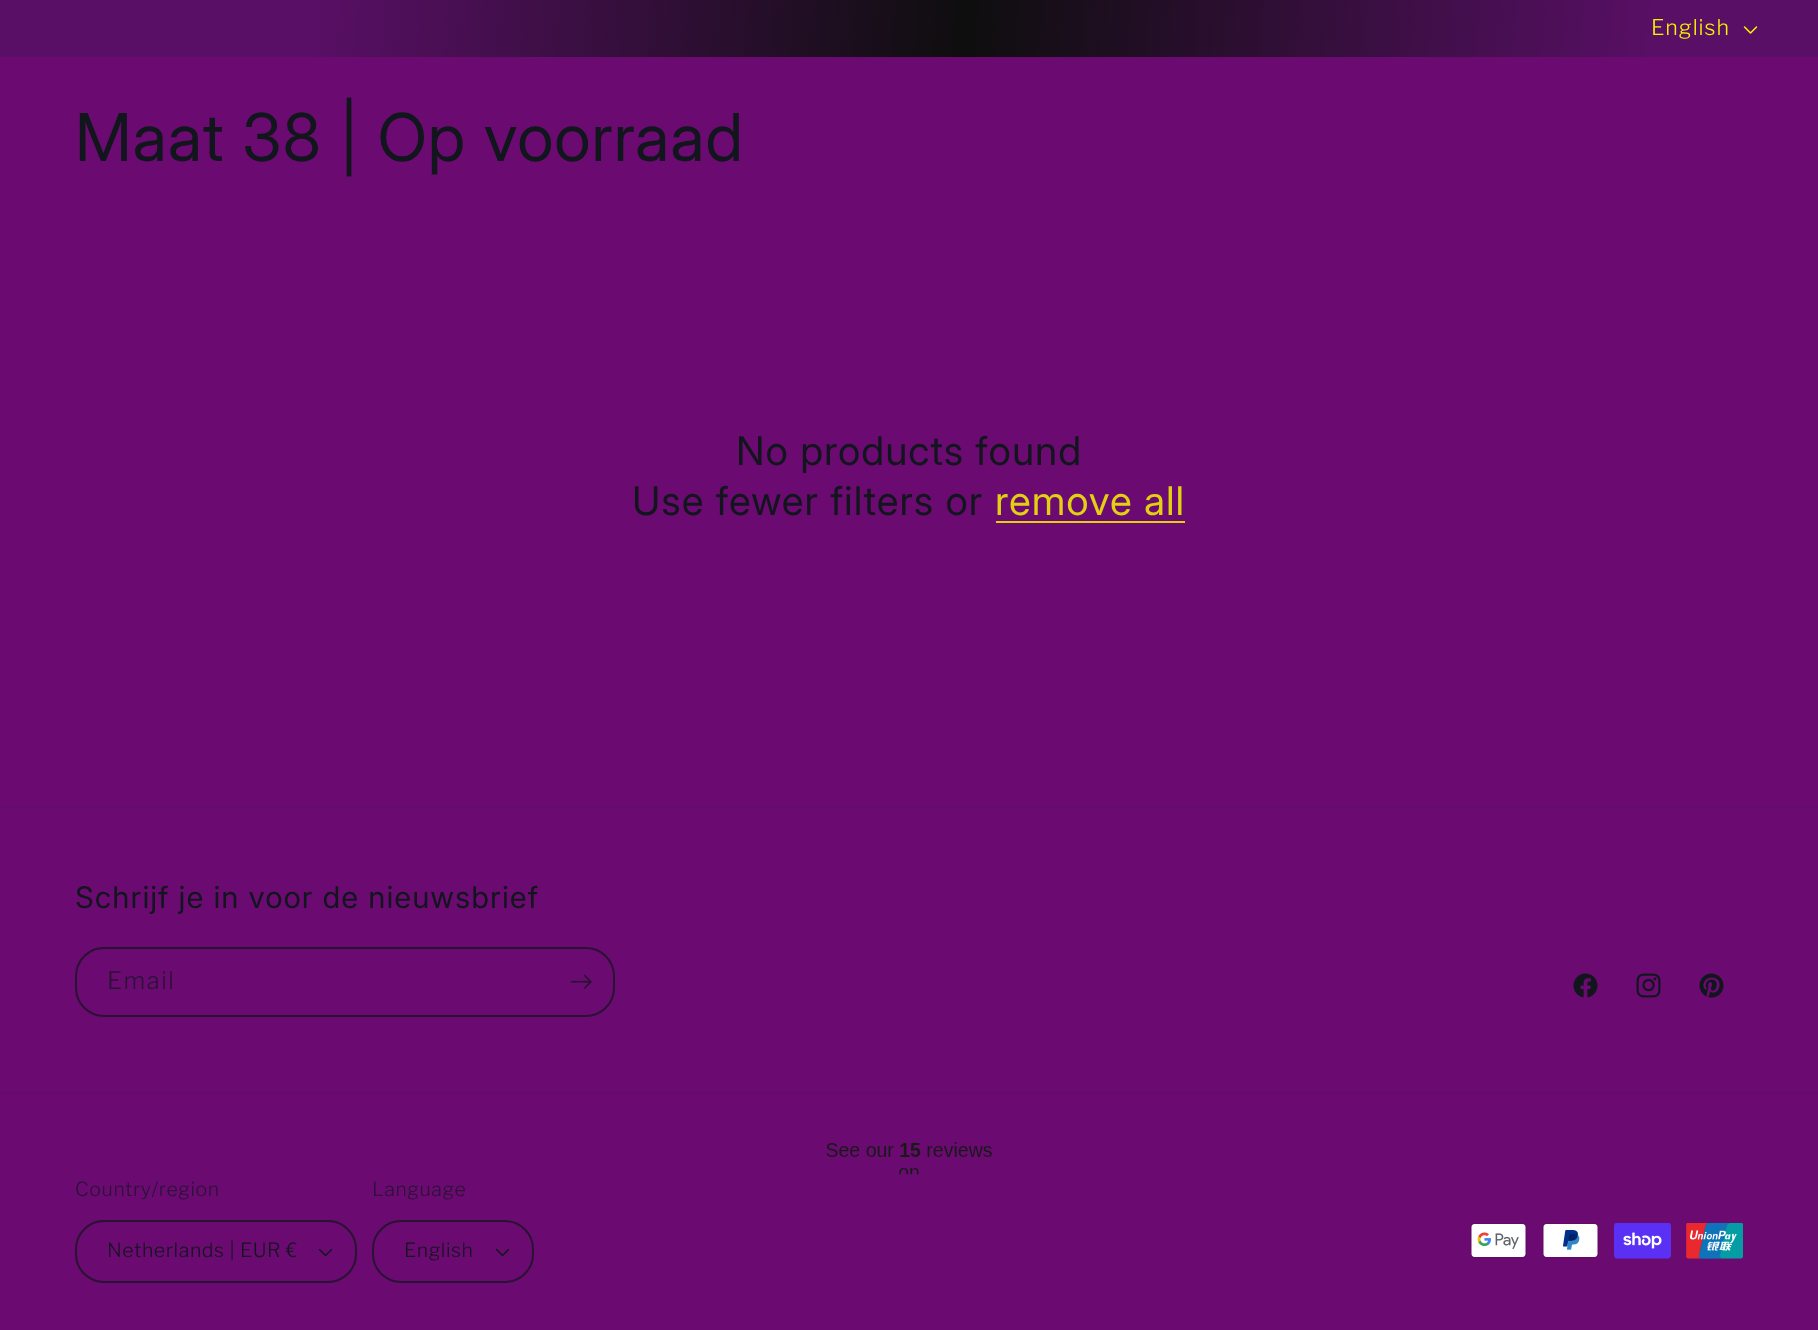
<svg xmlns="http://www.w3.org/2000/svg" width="1818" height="1330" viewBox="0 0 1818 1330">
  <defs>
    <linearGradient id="g1" gradientUnits="userSpaceOnUse" x1="-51" y1="581" x2="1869" y2="749"><stop offset="0.16" stop-color="#590f66"/><stop offset="0.5" stop-color="#0e0e0e"/><stop offset="0.86" stop-color="#590f66"/></linearGradient>
  </defs>
  <rect width="100%" height="100%" fill="#6b0b72"/>
  <path d="M0 0h1818v57H0z" fill="url(#g1)"/>
  <image x="1743" y="26" width="15" height="8" href="img/1.png"/>
  <path d="M996 521h189v2H996z" fill="#e3d011"/>
  <path d="M0 806h1818v2H0z" fill="#640c6b"/>
  <rect x="76" y="948" width="538" height="68" rx="28" fill="none" stroke="#281332" stroke-width="2"/>
  <image x="570" y="974" width="22" height="15" href="img/2.png"/>
  <image x="1573" y="973" width="25" height="25" href="img/3.png"/>
  <image x="1636" y="973" width="25" height="25" href="img/4.png"/>
  <image x="1699" y="973" width="25" height="25" href="img/5.png"/>
  <path d="M0 1092h1818v2H0z" fill="#640c6b"/>
  <image x="826" y="1142" width="166" height="33" href="img/6.png"/>
  <image x="318" y="1248" width="15" height="9" href="img/7.png"/>
  <rect x="76" y="1221" width="280" height="61" rx="28" fill="none" stroke="#281332" stroke-width="2"/>
  <image x="495" y="1248" width="15" height="9" href="img/7.png"/>
  <rect x="373" y="1221" width="160" height="61" rx="28" fill="none" stroke="#281332" stroke-width="2"/>
  <image x="1470" y="1223" width="57" height="36" href="img/8.png"/>
  <image x="1542" y="1223" width="57" height="36" href="img/9.png"/>
  <image x="1614" y="1223" width="57" height="36" href="img/10.png"/>
  <image x="1686" y="1223" width="57" height="36" href="img/11.png"/>
  <text x="1651" y="35" font-family="Libre Franklin" font-size="21.5" font-weight="300" letter-spacing="1" fill="#f8f300">English</text>
  <text x="75" y="161" font-family="Inter" font-size="66" letter-spacing="1" fill="#11151c">Maat 38 | Op voorraad</text>
  <g font-family="'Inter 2'" font-size="39.5" letter-spacing="1" fill="#11151c">
    <text x="736" y="465">No products found</text>
    <text x="632" y="515">Use fewer filters or</text>
  </g>
  <text x="995" y="515" font-family="'Inter 2'" font-size="39.5" letter-spacing="1" fill="#e3d011">remove all</text>
  <text x="75" y="908" font-family="'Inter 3'" font-size="29.75" letter-spacing="1" fill="#11151c">Schrijf je in voor de nieuwsbrief</text>
  <text x="107" y="989" font-family="Libre Franklin" font-size="24" font-weight="300" letter-spacing="1.5" fill="#281332">Email</text>
  <text x="75" y="1196" font-family="Libre Franklin" font-size="19.5" font-weight="300" letter-spacing="0.6" fill="#281332">Country/region</text>
  <text x="107" y="1257" font-family="Libre Franklin" font-size="19.5" font-weight="300" letter-spacing="0.6" fill="#11151c">Netherlands | EUR €</text>
  <text x="372" y="1196" font-family="Libre Franklin" font-size="19.5" font-weight="300" letter-spacing="0.6" fill="#281332">Language</text>
  <text x="404" y="1257" font-family="Libre Franklin" font-size="19.5" font-weight="300" letter-spacing="0.6" fill="#11151c">English</text>
</svg>
